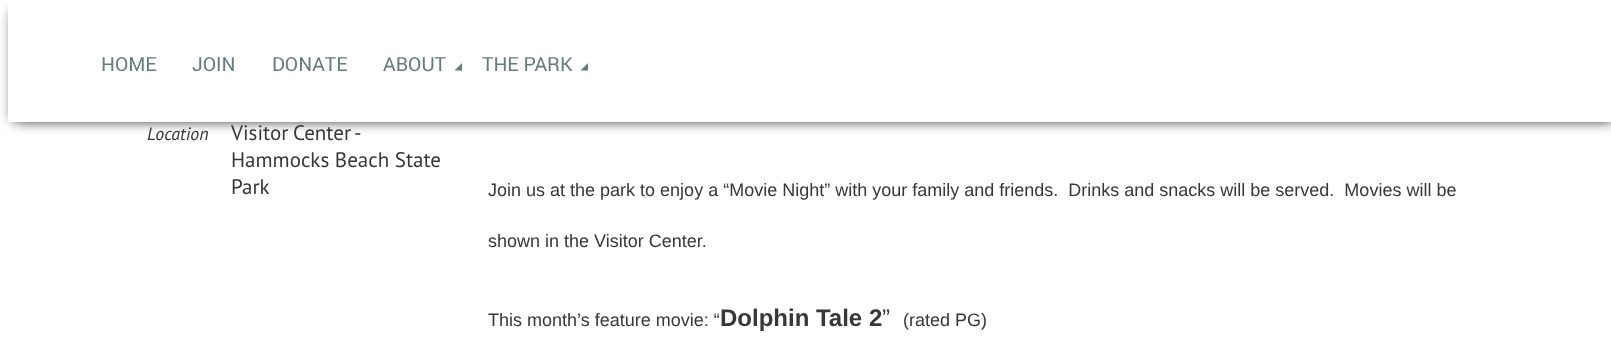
<svg xmlns="http://www.w3.org/2000/svg" width="1611" height="341" viewBox="0 0 1611 341">
  <rect width="100%" height="100%" fill="#fff"/>
  <path d="M14 11h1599v109H14z" fill="#000" filter="blur(7px)"/>
  <path d="M8 0h1603v122H8z" fill="#fff"/>
  <path d="M462 70.5H454.5L462 63Z" fill="#657b80"/>
  <path d="M588 70.5H580.5L588 63Z" fill="#657b80"/>
  <g font-family="Roboto" font-size="19.5" fill="#657b80">
    <text x="101" y="71">HOME</text>
    <text x="192" y="71">JOIN</text>
    <text x="272" y="71">DONATE</text>
    <text x="383" y="71">ABOUT</text>
    <text x="482" y="71">THE PARK</text>
  </g>
  <text x="147" y="140" font-family="PT Sans" font-size="18" font-style="italic" fill="#373737">Location</text>
  <g font-family="PT Sans" font-size="21" fill="#373737">
    <text x="231" y="140" word-spacing="-1">Visitor Center -</text>
    <text x="231" y="167">Hammocks Beach State</text>
    <text x="231" y="194">Park</text>
  </g>
  <g font-family="Liberation Sans" font-size="18" fill="#373737">
    <text x="488" y="196" xml:space="preserve">Join us at the park to enjoy a “Movie Night” with your family and friends.  Drinks and snacks will be served.  Movies will be</text>
    <text x="488" y="247">shown in the Visitor Center.</text>
    <text x="488" y="326">This month’s feature movie: “</text>
  </g>
  <text x="720" y="326" font-family="Liberation Sans" font-size="24" font-weight="bold" fill="#373737">Dolphin Tale 2</text>
  <text x="882" y="326" font-family="Liberation Sans" font-size="24" fill="#373737">”</text>
  <text x="903" y="326" font-family="Liberation Sans" font-size="18" fill="#373737">(rated PG)</text>
</svg>
